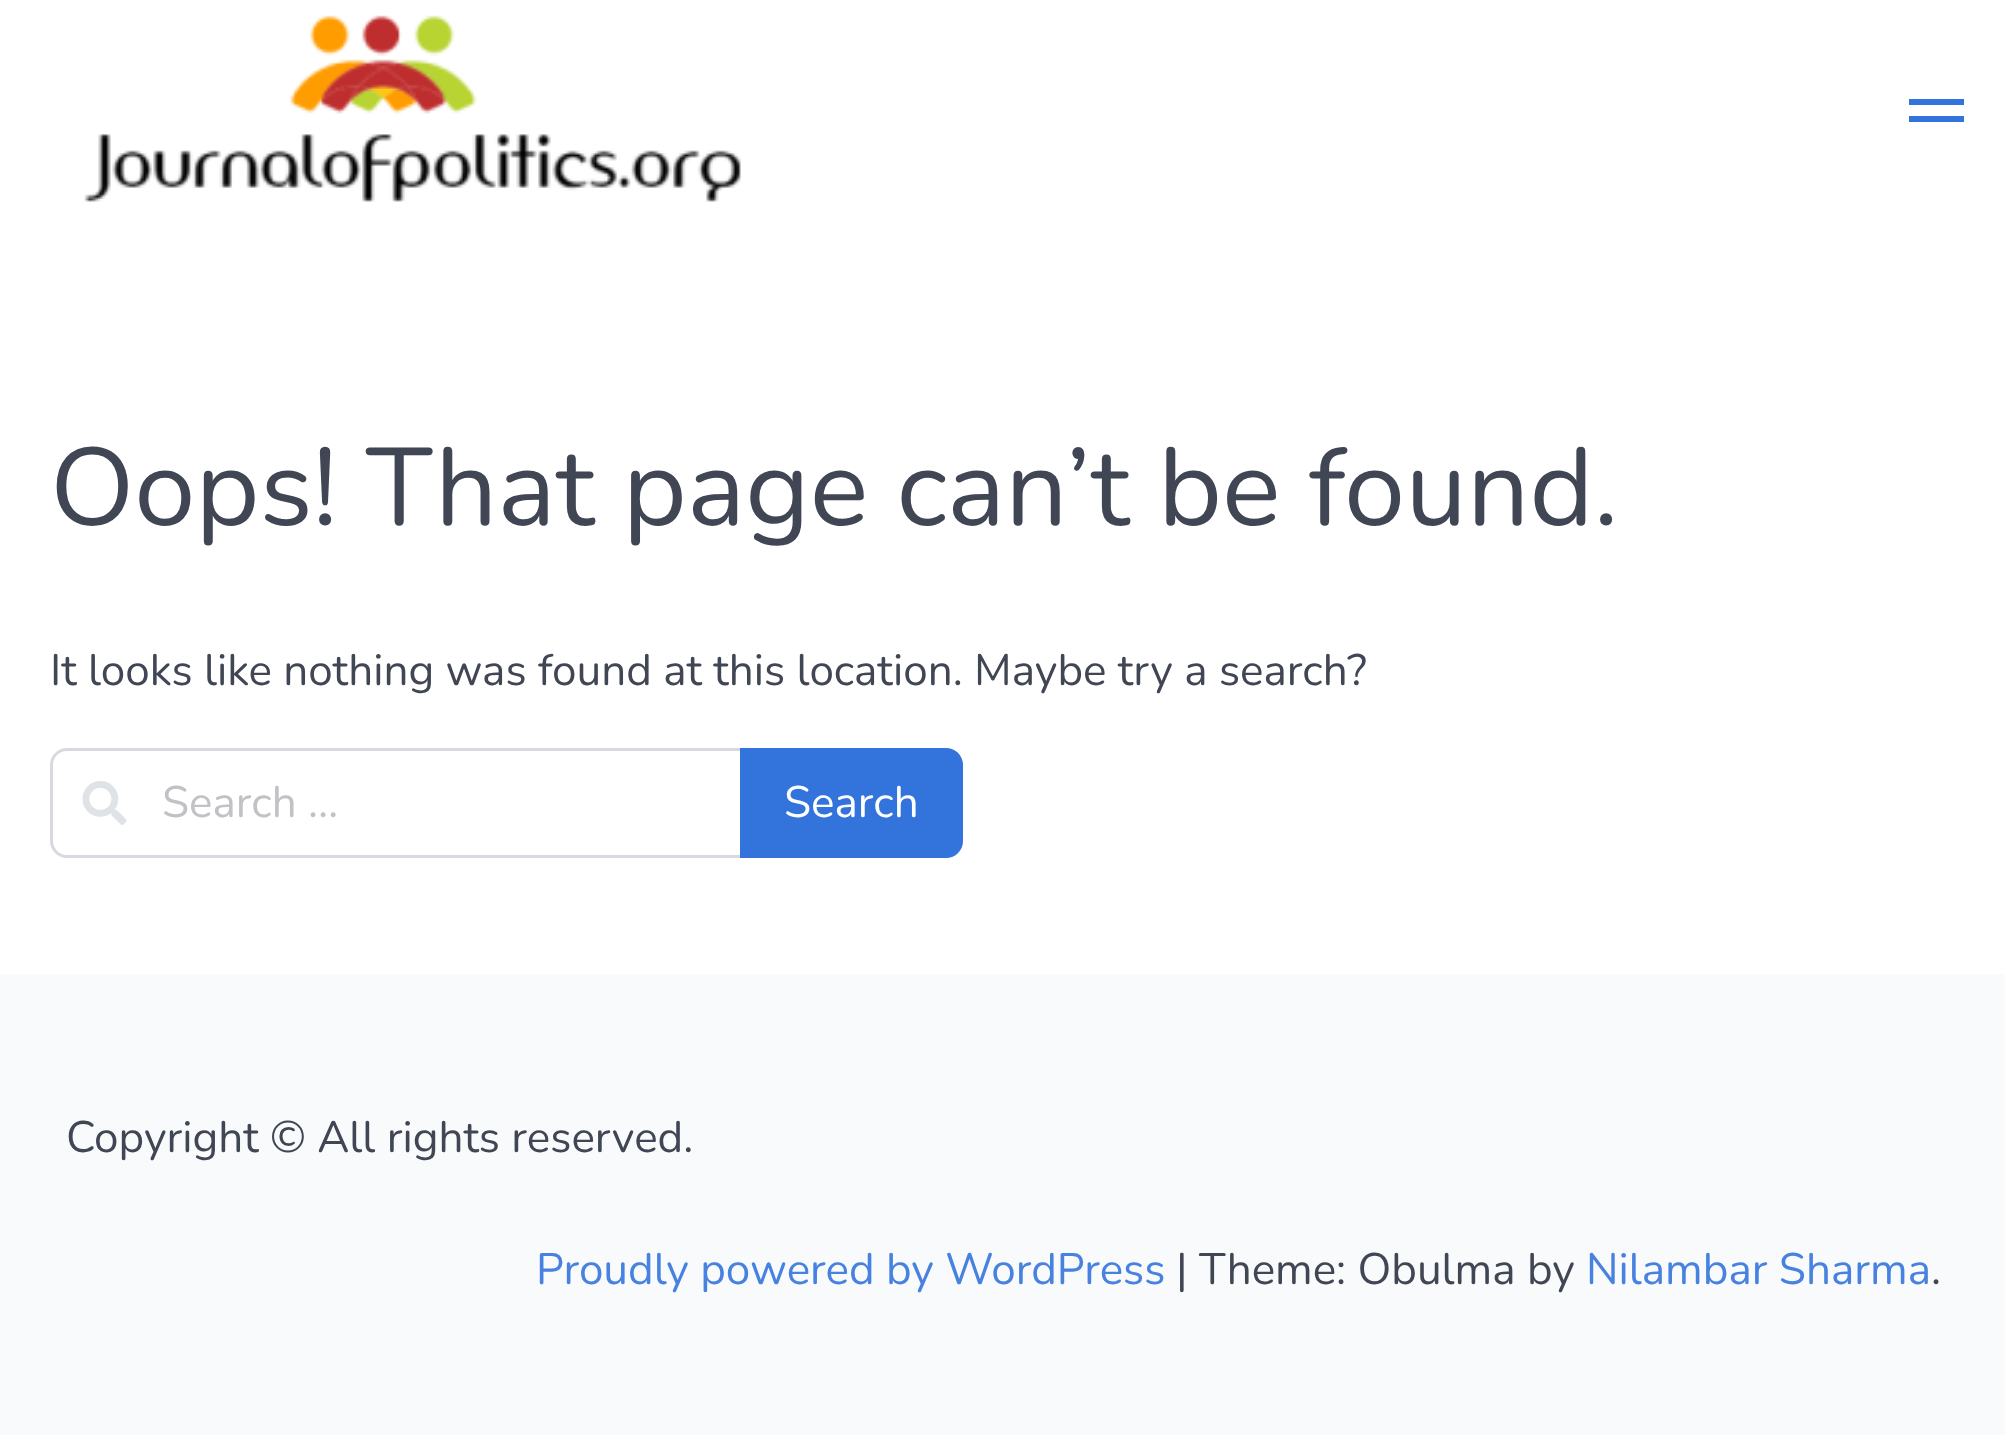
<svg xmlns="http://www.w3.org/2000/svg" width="2005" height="1435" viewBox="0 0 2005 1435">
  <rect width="100%" height="100%" fill="#fff"/>
  <image x="84" y="15" width="657" height="187" href="img/1.png"/>
  <path d="M1909 99h55v6H1909z" fill="#3273dc"/>
  <path d="M1909 116h55v6H1909z" fill="#3273dc"/>
  <path d="M67 749.5H741.5V856.5H67C58.5 856.5 51.5 849.5 51.5 841V765C51.5 756.5 58.5 749.5 67 749.5Z" fill="none" stroke="#d6d9e0" stroke-width="3"/>
  <image x="82" y="781" width="45" height="44" href="img/2.png"/>
  <path d="M740 748H946C955.5 748 963 755.5 963 765V841C963 850.5 955.5 858 946 858H740Z" fill="#3273dc"/>
  <path d="M0 974h2005v461H0z" fill="#f9fafb"/>
  <text x="50" y="525" font-family="Nunito" font-size="110" fill="#404654">Oops! That page can’t be found.</text>
  <text x="50" y="685" font-family="Nunito" font-size="44" fill="#404654">It looks like nothing was found at this location. Maybe try a search?</text>
  <text x="162" y="817" font-family="Nunito" font-size="44" fill="#c0c2c5">Search …</text>
  <text x="784" y="817" font-family="Nunito" font-size="44" fill="#fff">Search</text>
  <text x="66" y="1152" font-family="Nunito" font-size="44" fill="#404654">Copyright © All rights reserved.</text>
  <text x="536" y="1284" font-family="Nunito" font-size="44" fill="#4882e0">Proudly powered by WordPress</text>
  <text x="1176" y="1284" font-family="Nunito" font-size="44" fill="#404654">| Theme: Obulma by</text>
  <text x="1586" y="1284" font-family="Nunito" font-size="44" fill="#4882e0">Nilambar Sharma</text>
  <text x="1931" y="1284" font-family="Nunito" font-size="44" fill="#404654">.</text>
</svg>
